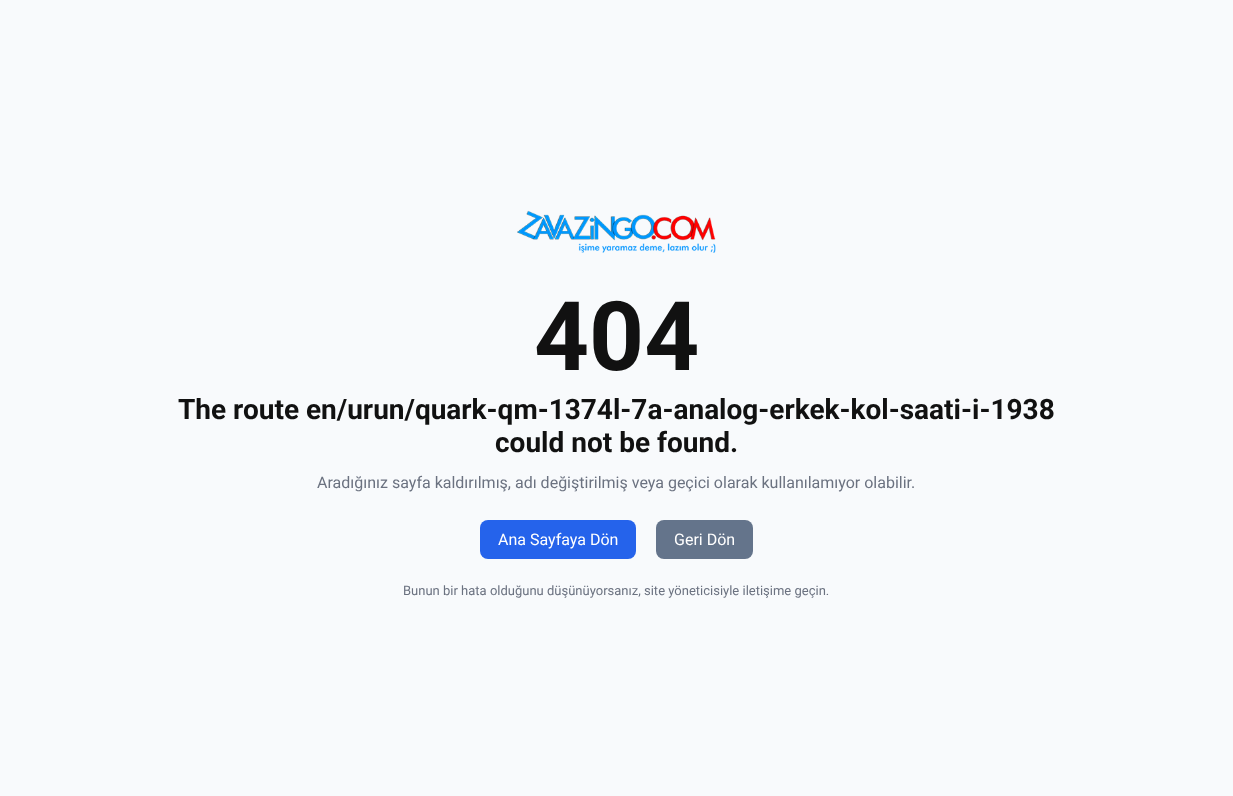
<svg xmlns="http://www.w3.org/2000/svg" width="1233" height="796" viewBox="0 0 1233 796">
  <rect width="100%" height="100%" fill="#f8fafc"/>
  <image x="517" y="210" width="199" height="43" href="img/1.png"/>
  <rect x="480" y="520" width="156" height="39" rx="8" fill="#2563eb"/>
  <rect x="656" y="520" width="97" height="39" rx="8" fill="#64748b"/>
  <text x="534" y="370" font-family="Roboto" font-size="96" font-weight="bold" fill="#111">404</text>
  <g font-family="Roboto" font-size="28" font-weight="bold" fill="#111">
    <text x="178" y="419">The route en/urun/quark-qm-1374l-7a-analog-erkek-kol-saati-i-1938</text>
    <text x="495" y="452">could not be found.</text>
  </g>
  <text x="317" y="488" font-family="Roboto" font-size="16" fill="#6b7280">Aradığınız sayfa kaldırılmış, adı değiştirilmiş veya geçici olarak kullanılamıyor olabilir.</text>
  <g font-family="Roboto" font-size="16" fill="#fff">
    <text x="498" y="545">Ana Sayfaya Dön</text>
    <text x="674" y="545">Geri Dön</text>
  </g>
  <text x="403" y="595" font-family="Roboto" font-size="13" fill="#6b7280">Bunun bir hata olduğunu düşünüyorsanız, site yöneticisiyle iletişime geçin.</text>
</svg>
